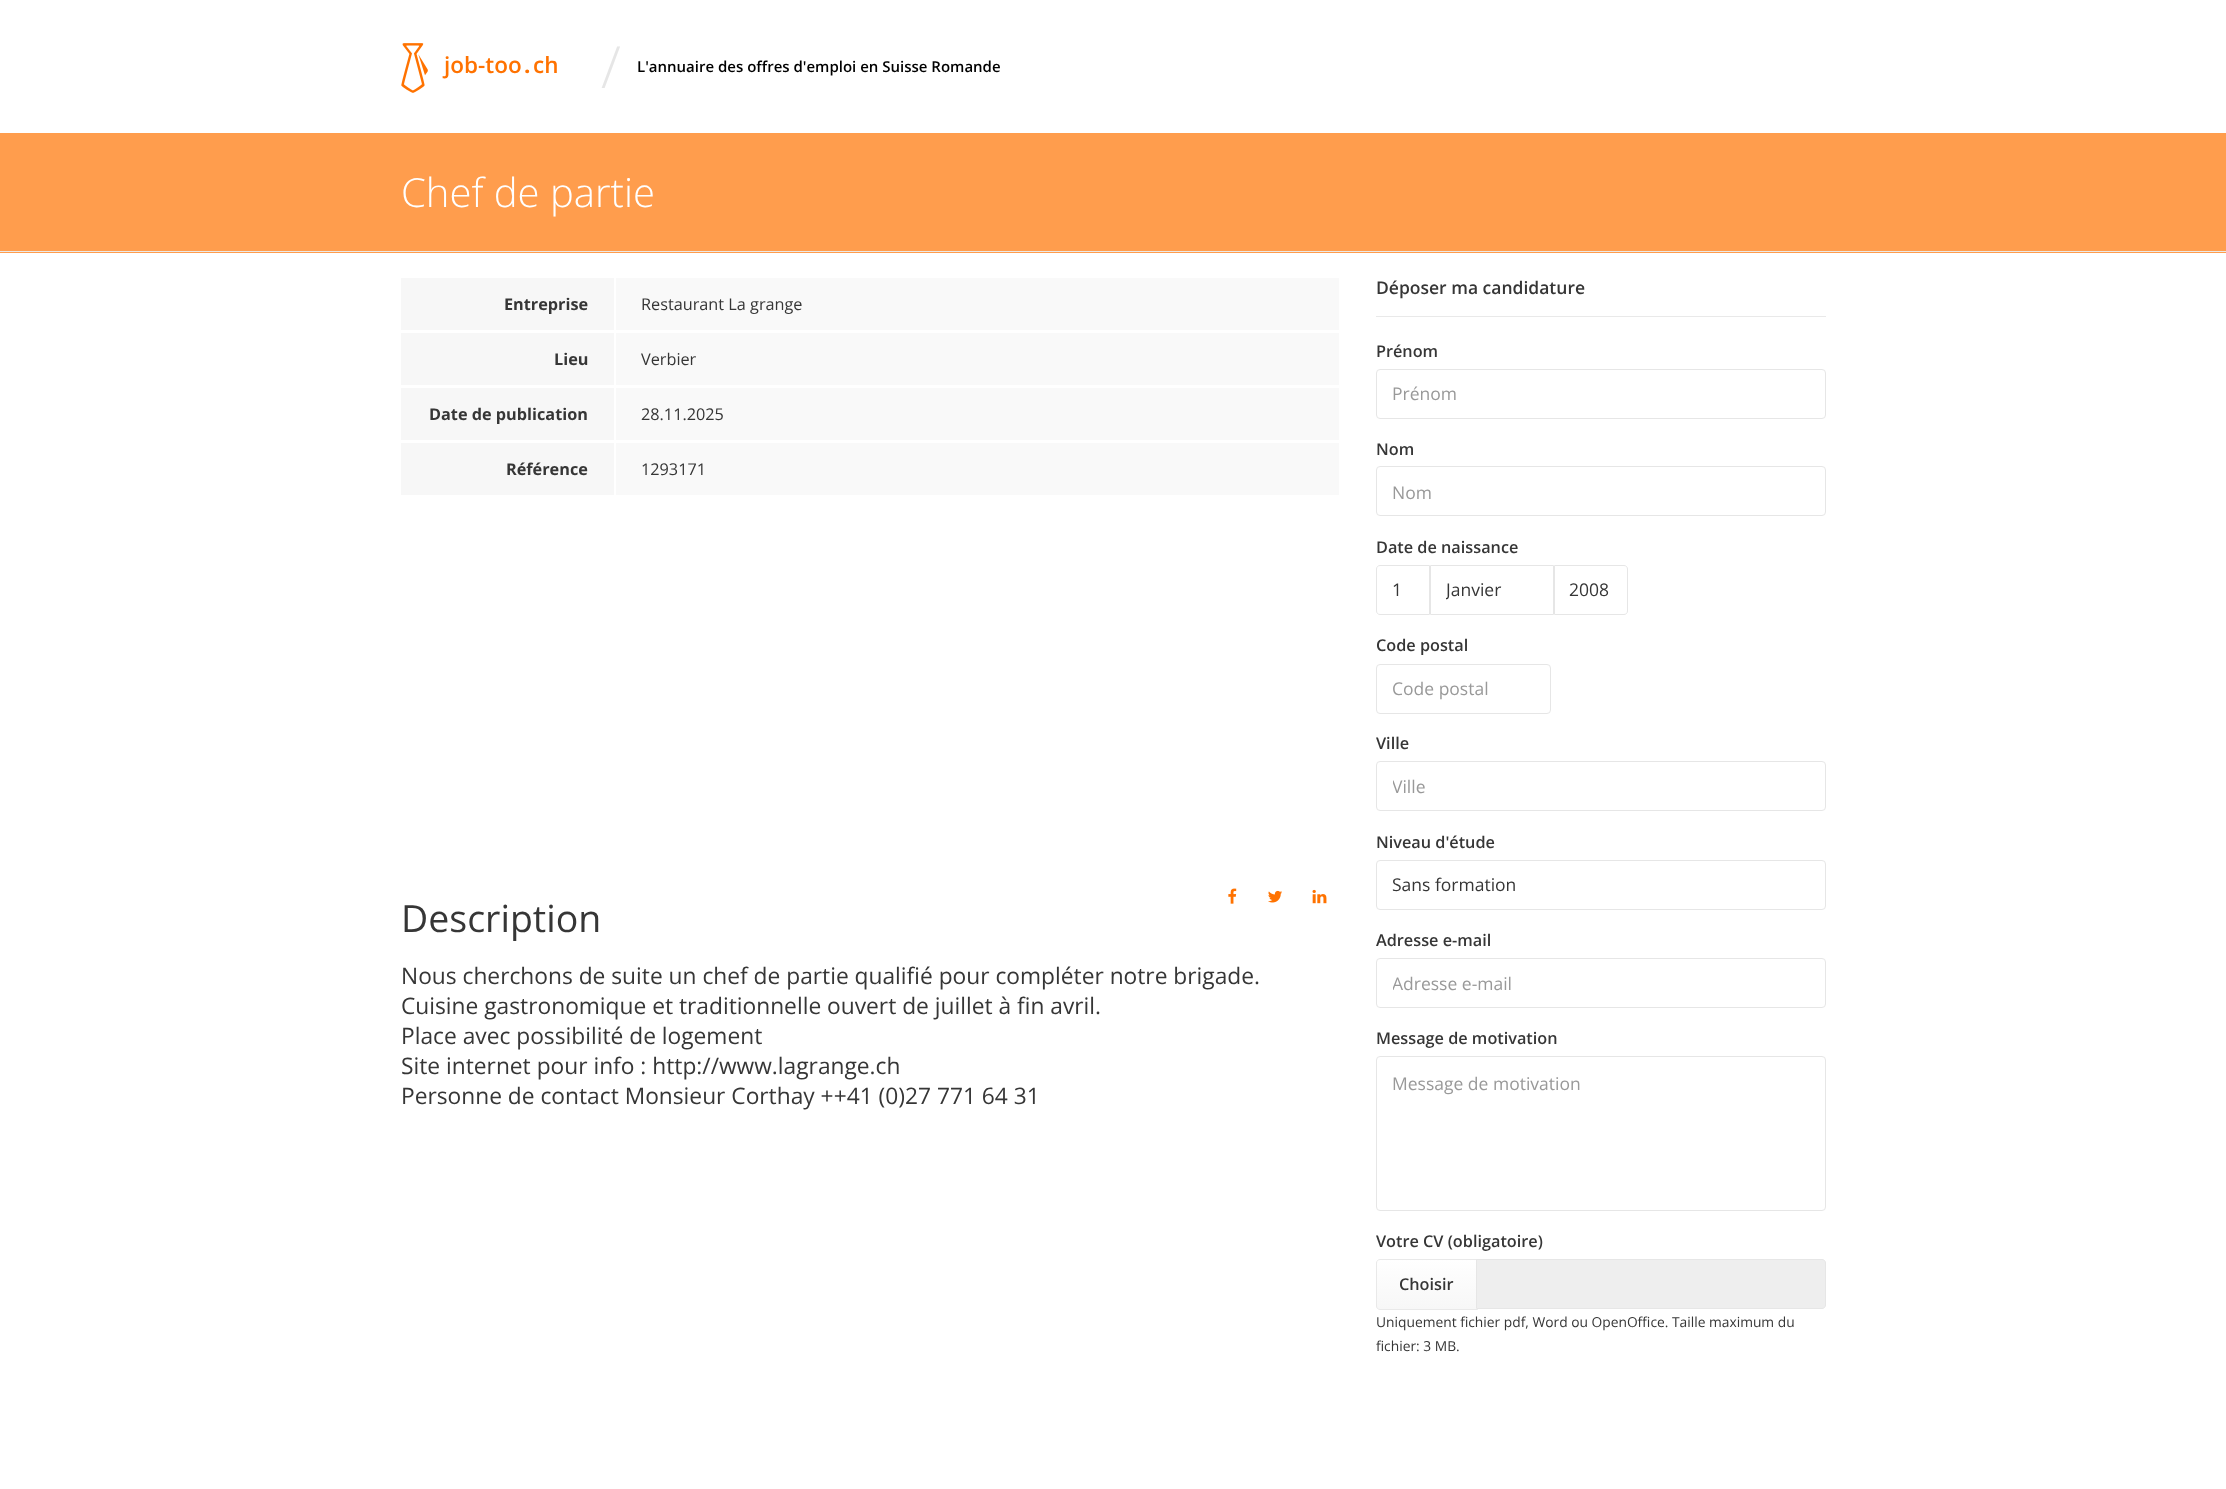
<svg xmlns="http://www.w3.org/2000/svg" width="2226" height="1489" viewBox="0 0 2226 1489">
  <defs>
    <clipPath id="clip1"><path d="M1380 1259H1478V1310H1380C1378 1310 1376 1308 1376 1306V1263C1376 1261 1378 1259 1380 1259Z"/></clipPath>
    <linearGradient id="g1" gradientUnits="userSpaceOnUse" x1="1427" y1="1309" x2="1427" y2="1260"><stop offset="0" stop-color="#f7f7f7"/><stop offset="1" stop-color="#fff"/></linearGradient>
    <clipPath id="clip2"><path d="M1446 578h92v25H1446z"/></clipPath>
    <clipPath id="clip3"><path d="M1393 775h417v24H1393z"/></clipPath>
    <clipPath id="clip4"><path d="M1393 971h417v24H1393z"/></clipPath>
  </defs>
  <rect width="100%" height="100%" fill="#fff"/>
  <image x="401" y="43" width="27" height="50" href="img/1.png"/>
  <path d="M0 133h2226v120H0z" fill="#ff9d4d"/>
  <path d="M0 251h2226v1H0z" fill="#e9e9e9"/>
  <path d="M401 278h213v52H401z" fill="#f7f7f7"/>
  <path d="M616 278h723v52H616z" fill="#f9f9f9"/>
  <path d="M401 333h213v52H401z" fill="#f7f7f7"/>
  <path d="M616 333h723v52H616z" fill="#f9f9f9"/>
  <path d="M401 388h213v52H401z" fill="#f7f7f7"/>
  <path d="M616 388h723v52H616z" fill="#f9f9f9"/>
  <path d="M401 443h213v52H401z" fill="#f7f7f7"/>
  <path d="M616 443h723v52H616z" fill="#f9f9f9"/>
  <image x="1228" y="888" width="9" height="16" href="img/2.png"/>
  <image x="1268" y="890" width="14" height="13" href="img/3.png"/>
  <image x="1312" y="889" width="15" height="15" href="img/4.png"/>
  <path d="M1376 316h450v1H1376z" fill="#e9e9e9"/>
  <rect x="1376.5" y="369.5" width="449" height="49" rx="3.5" fill="none" stroke="#e6e6e6"/>
  <rect x="1376.5" y="466.5" width="449" height="49" rx="3.5" fill="none" stroke="#e6e6e6"/>
  <path d="M1380 565.5H1429.5V614.5H1380C1378 614.5 1376.5 613 1376.5 611V569C1376.5 567 1378 565.5 1380 565.5Z" fill="none" stroke="#e6e6e6"/>
  <path d="M1430.5 565.5h123v49H1430.5z" fill="none" stroke="#e6e6e6"/>
  <path d="M1554.5 565.5H1624C1626 565.5 1627.5 567 1627.5 569V611C1627.5 613 1626 614.5 1624 614.5H1554.5Z" fill="none" stroke="#e6e6e6"/>
  <rect x="1376.5" y="664.5" width="174" height="49" rx="3.5" fill="none" stroke="#e6e6e6"/>
  <rect x="1376.5" y="761.5" width="449" height="49" rx="3.5" fill="none" stroke="#e6e6e6"/>
  <rect x="1376.5" y="860.5" width="449" height="49" rx="3.5" fill="none" stroke="#e6e6e6"/>
  <rect x="1376.5" y="958.5" width="449" height="49" rx="3.5" fill="none" stroke="#e6e6e6"/>
  <rect x="1376.5" y="1056.5" width="449" height="154" rx="3.5" fill="none" stroke="#e6e6e6"/>
  <g clip-path="url(#clip1)">
    <path d="M1376 1260h100v49H1376z" fill="url(#g1)"/>
  </g>
  <path d="M1380 1259.5H1477.5V1309.5H1380C1378 1309.5 1376.5 1308 1376.5 1306V1263C1376.5 1261 1378 1259.5 1380 1259.5Z" fill="none" stroke="#e9e9e9"/>
  <path d="M1476.5 1259.5H1822C1824 1259.5 1825.5 1261 1825.5 1263V1305C1825.5 1307 1824 1308.5 1822 1308.5H1476.5Z" fill="#eee" stroke="#e6e6e6"/>
  <text x="444" y="73" font-family="Open Sans" font-size="22.5" font-weight="600" fill="#ff7200">job-too</text>
  <text x="524" y="73" font-family="Open Sans" font-size="22.5" font-weight="bold" fill="#ff7200">.</text>
  <text x="533" y="73" font-family="Open Sans" font-size="22.5" font-weight="600" fill="#ff7200">ch</text>
  <text x="601" y="88" font-family="Open Sans" font-size="58" font-weight="300" fill="#e6e6e6">/</text>
  <text x="637" y="72" font-family="Open Sans" font-size="15" font-weight="600" fill="#000">L'annuaire des offres d'emploi en Suisse Romande</text>
  <text x="401" y="207" font-family="Open Sans" font-size="40" font-weight="300" fill="#fff">Chef de partie</text>
  <text x="504" y="310" font-family="Open Sans" font-size="16.25" font-weight="bold" fill="#363636">Entreprise</text>
  <text x="641" y="310" font-family="Open Sans" font-size="16.25" fill="#363636">Restaurant La grange</text>
  <text x="554" y="365" font-family="Open Sans" font-size="16.25" font-weight="bold" fill="#363636">Lieu</text>
  <text x="641" y="365" font-family="Open Sans" font-size="16.25" fill="#363636">Verbier</text>
  <text x="429" y="420" font-family="Open Sans" font-size="16.25" font-weight="bold" fill="#363636">Date de publication</text>
  <text x="641" y="420" font-family="Open Sans" font-size="16.25" fill="#363636">28.11.2025</text>
  <text x="506" y="475" font-family="Open Sans" font-size="16.25" font-weight="bold" fill="#363636">Référence</text>
  <text x="641" y="475" font-family="Open Sans" font-size="16.25" fill="#363636">1293171</text>
  <text x="401" y="932" font-family="Open Sans" font-size="37.5" fill="#363636">Description</text>
  <g font-family="Open Sans" font-size="22.75" fill="#363636">
    <text x="401" y="984">Nous cherchons de suite un chef de partie qualifié pour compléter notre brigade.</text>
    <text x="401" y="1014">Cuisine gastronomique et traditionnelle ouvert de juillet à fin avril.</text>
    <text x="401" y="1044">Place avec possibilité de logement</text>
    <text x="401" y="1074">Site internet pour info : http://www.lagrange.ch</text>
    <text x="401" y="1104">Personne de contact Monsieur Corthay ++41 (0)27 771 64 31</text>
  </g>
  <text x="1376" y="294" font-family="Open Sans" font-size="17.5" font-weight="600" fill="#363636">Déposer ma candidature</text>
  <text x="1376" y="357" font-family="Open Sans" font-size="16.25" font-weight="600" fill="#363636">Prénom</text>
  <text x="1392" y="400" font-family="Open Sans" font-size="17.5" fill="#999">Prénom</text>
  <text x="1376" y="455" font-family="Open Sans" font-size="16.25" font-weight="600" fill="#363636">Nom</text>
  <text x="1392" y="499" font-family="Open Sans" font-size="17.5" fill="#999">Nom</text>
  <text x="1376" y="553" font-family="Open Sans" font-size="16.25" font-weight="600" fill="#363636">Date de naissance</text>
  <text x="1392" y="596" font-family="Open Sans" font-size="17.5" fill="#363636">1</text>
  <g clip-path="url(#clip2)">
    <text x="1446" y="596" font-family="Open Sans" font-size="17.5" fill="#363636">Janvier</text>
  </g>
  <text x="1569" y="596" font-family="Open Sans" font-size="17.5" fill="#363636">2008</text>
  <text x="1376" y="651" font-family="Open Sans" font-size="16.25" font-weight="600" fill="#363636">Code postal</text>
  <text x="1392" y="695" font-family="Open Sans" font-size="17.5" fill="#999">Code postal</text>
  <text x="1376" y="749" font-family="Open Sans" font-size="16.25" font-weight="600" fill="#363636">Ville</text>
  <g clip-path="url(#clip3)">
    <text x="1392" y="793" font-family="Open Sans" font-size="17.5" fill="#999">Ville</text>
  </g>
  <text x="1376" y="848" font-family="Open Sans" font-size="16.25" font-weight="600" fill="#363636">Niveau d'étude</text>
  <text x="1392" y="891" font-family="Open Sans" font-size="17.5" fill="#363636">Sans formation</text>
  <text x="1376" y="946" font-family="Open Sans" font-size="16.25" font-weight="600" fill="#363636">Adresse e-mail</text>
  <g clip-path="url(#clip4)">
    <text x="1392" y="990" font-family="Open Sans" font-size="17.5" fill="#999">Adresse e-mail</text>
  </g>
  <text x="1376" y="1044" font-family="Open Sans" font-size="16.25" font-weight="600" fill="#363636">Message de motivation</text>
  <text x="1392" y="1090" font-family="Open Sans" font-size="17.5" fill="#999">Message de motivation</text>
  <g font-family="Open Sans" font-size="16.25" font-weight="600" fill="#363636">
    <text x="1376" y="1247">Votre CV (obligatoire)</text>
    <text x="1399" y="1290">Choisir</text>
  </g>
  <g font-family="Open Sans" font-size="13.8" fill="#363636">
    <text x="1376" y="1327">Uniquement fichier pdf, Word ou OpenOffice. Taille maximum du</text>
    <text x="1376" y="1351">fichier: 3 MB.</text>
  </g>
</svg>
